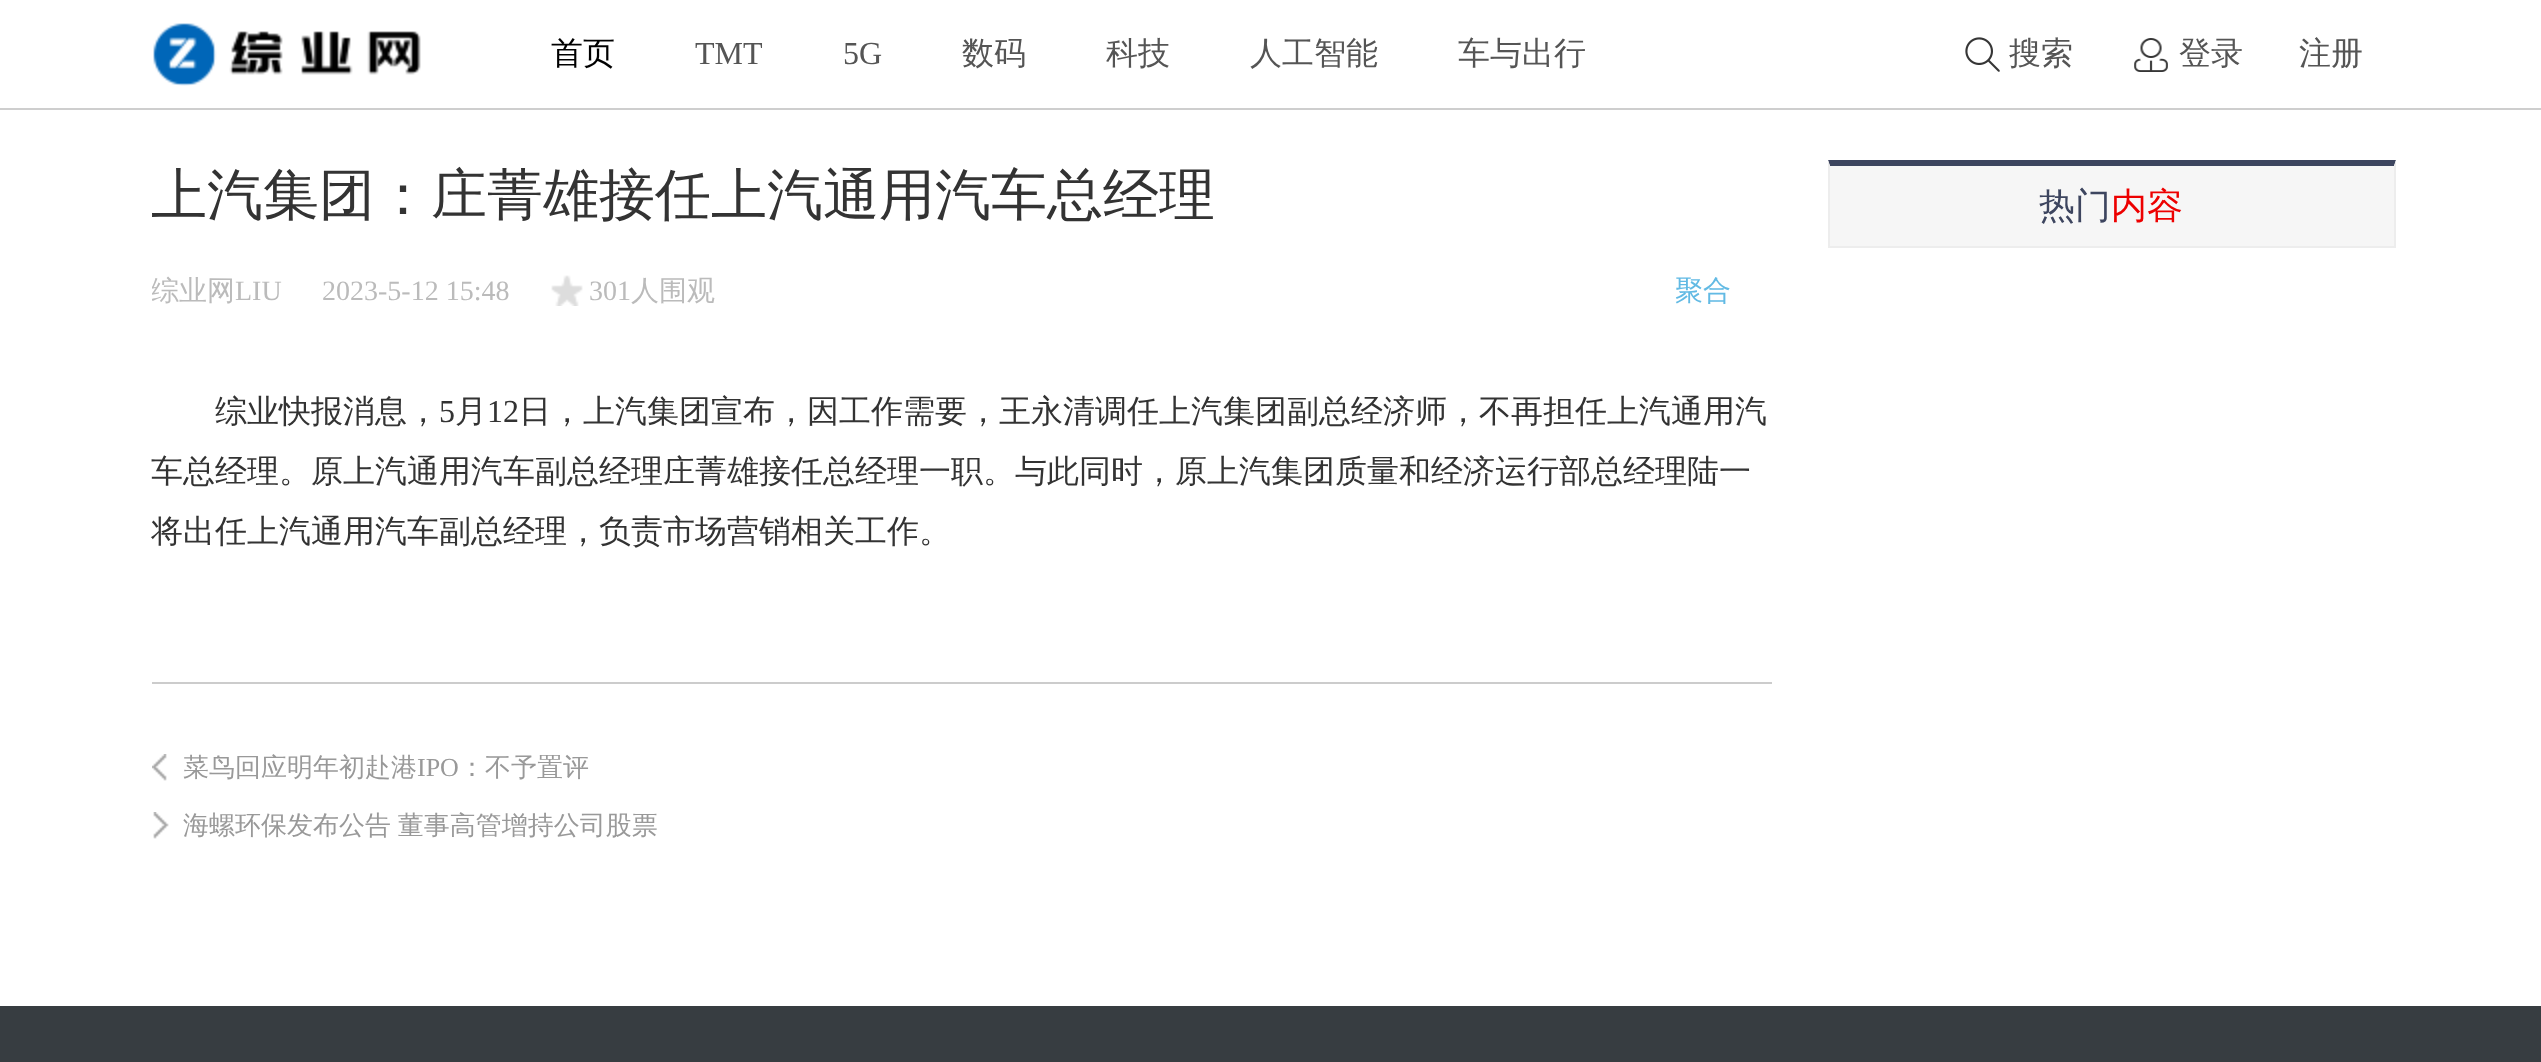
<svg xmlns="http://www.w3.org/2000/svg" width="2541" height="1062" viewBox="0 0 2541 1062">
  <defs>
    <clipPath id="clip1"><path d="M152 262h1620v70H152z"/></clipPath>
  </defs>
  <rect width="100%" height="100%" fill="#fff"/>
  <path d="M0 108h2541v2H0z" fill="#cecece"/>
  <image x="153" y="23" width="268" height="63" href="img/1.png"/>
  <image x="1965" y="37" width="35" height="35" href="img/2.png"/>
  <image x="2134" y="38" width="34" height="34" href="img/3.png"/>
  <image x="551" y="275" width="32" height="31" href="img/4.png"/>
  <path d="M152 682h1620v2H152z" fill="#ccc"/>
  <image x="152" y="754" width="15" height="27" href="img/5.png"/>
  <image x="153" y="812" width="16" height="27" href="img/6.png"/>
  <path d="M1828 160H2396L2394 166H1830Z" fill="#3d455f"/>
  <path d="M2396 160V248L2394 246V166Z" fill="#ededed"/>
  <path d="M1828 246h568v2H1828z" fill="#ededed"/>
  <path d="M1828 248V160L1830 166V246Z" fill="#ededed"/>
  <path d="M1830 166h564v80H1830z" fill="#f6f6f6"/>
  <path d="M0 1006h2541v56H0z" fill="#373d41"/>
  <text x="551" y="64" font-family="WenQuanYi Zen Hei" font-size="32" font-weight="500" fill="#000">首页</text>
  <g font-family="Liberation Serif" font-size="32" fill="#555">
    <text x="695" y="64">TMT</text>
    <text x="843" y="64">5G</text>
  </g>
  <g font-family="WenQuanYi Zen Hei" font-size="32" font-weight="500" fill="#555">
    <text x="962" y="64">数码</text>
    <text x="1106" y="64">科技</text>
    <text x="1250" y="64">人工智能</text>
    <text x="1458" y="64">车与出行</text>
    <text x="2009" y="64">搜索</text>
    <text x="2179" y="64">登录</text>
    <text x="2299" y="64">注册</text>
  </g>
  <text x="151" y="214" font-family="WenQuanYi Zen Hei" font-size="56" font-weight="500" fill="#333">上汽集团：庄菁雄接任上汽通用汽车总经理</text>
  <g clip-path="url(#clip1)">
    <text x="151" y="300" font-family="WenQuanYi Zen Hei" font-size="28" font-weight="500" fill="#bbb">综业网</text>
  </g>
  <g font-family="Liberation Serif" font-size="28" fill="#bbb">
    <text x="235" y="300">LIU</text>
    <text x="322" y="300">2023-5-12 15:48</text>
    <text x="589" y="300">301</text>
  </g>
  <text x="631" y="300" font-family="WenQuanYi Zen Hei" font-size="28" font-weight="500" fill="#bbb">人围观</text>
  <text x="1675" y="300" font-family="WenQuanYi Zen Hei" font-size="28" font-weight="500" fill="#62bae4">聚合</text>
  <text x="215" y="422" font-family="WenQuanYi Zen Hei" font-size="32" font-weight="500" fill="#333">综业快报消息，</text>
  <text x="439" y="422" font-family="Liberation Serif" font-size="32" fill="#333">5</text>
  <text x="455" y="422" font-family="WenQuanYi Zen Hei" font-size="32" font-weight="500" fill="#333">月</text>
  <text x="487" y="422" font-family="Liberation Serif" font-size="32" fill="#333">12</text>
  <g font-family="WenQuanYi Zen Hei" font-size="32" font-weight="500" fill="#333">
    <text x="519" y="422">日，上汽集团宣布，因工作需要，王永清调任上汽集团副总经济师，不再担任上汽通用汽</text>
    <text x="151" y="482">车总经理。原上汽通用汽车副总经理庄菁雄接任总经理一职。与此同时，原上汽集团质量和经济运行部总经理陆一</text>
    <text x="151" y="542">将出任上汽通用汽车副总经理，负责市场营销相关工作。</text>
  </g>
  <text x="183" y="776" font-family="WenQuanYi Zen Hei" font-size="26" font-weight="500" fill="#999">菜鸟回应明年初赴港</text>
  <text x="417" y="776" font-family="Liberation Serif" font-size="26" fill="#999">IPO</text>
  <g font-family="WenQuanYi Zen Hei" font-size="26" font-weight="500" fill="#999">
    <text x="459" y="776">：不予置评</text>
    <text x="183" y="834" word-spacing="-1">海螺环保发布公告 董事高管增持公司股票</text>
  </g>
  <text x="2039" y="218" font-family="WenQuanYi Zen Hei" font-size="36" font-weight="500" fill="#3d455f">热门</text>
  <text x="2111" y="218" font-family="WenQuanYi Zen Hei" font-size="36" font-weight="500" fill="#ed0000">内容</text>
</svg>
